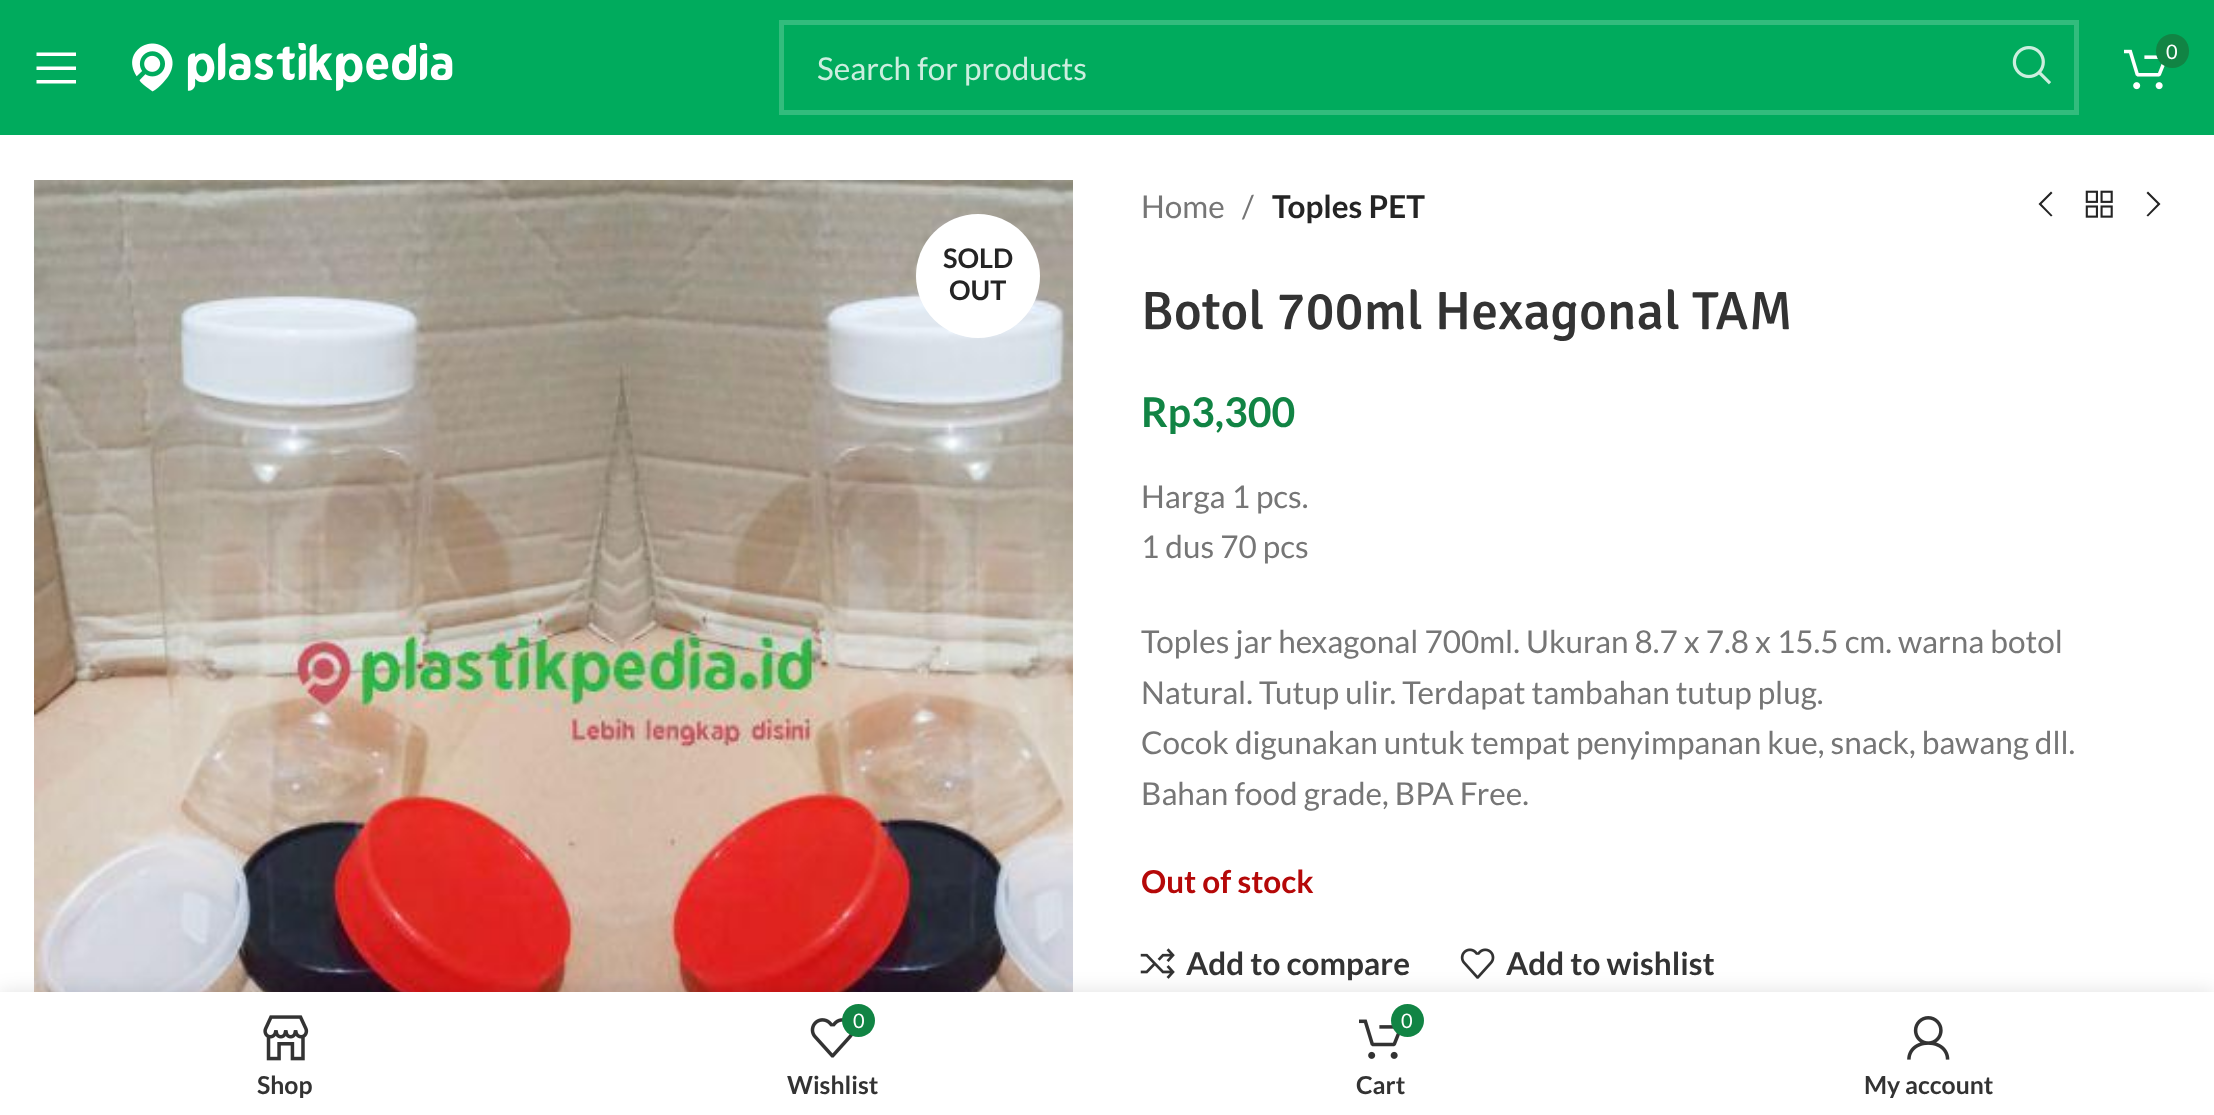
<svg xmlns="http://www.w3.org/2000/svg" width="2214" height="1115" viewBox="0 0 2214 1115">
  <defs>
    <clipPath id="clip1"><path d="M34 1069h504v29H34z"/></clipPath>
    <clipPath id="clip2"><path d="M1679 1069h501v29H1679z"/></clipPath>
  </defs>
  <rect width="100%" height="100%" fill="#fff"/>
  <path d="M0 0h2214v135H0z" fill="#00ab5d"/>
  <path d="M36.5 56H76V52.5H36.5ZM36.5 70H76V66.5H36.5ZM36.5 83.5H76V80H36.5Z" fill="#fff"/>
  <image x="132" y="43" width="321" height="49" href="img/1.png"/>
  <image x="2124" y="49" width="41" height="41" href="img/2.png"/>
  <rect x="2156" y="34" width="33" height="34" rx="16.5" fill="#118444"/>
  <path d="M781.5 22.5h1295v90H781.5z" fill="none" stroke="#33bc7d" stroke-width="5"/>
  <image x="2012" y="46" width="39" height="39" href="img/3.png"/>
  <image x="34" y="180" width="1039" height="812" href="img/4.png"/>
  <circle cx="978" cy="276" r="62" fill="#fff"/>
  <path d="M2052.5 193L2051 191.5L2038.5 204L2051 216.5L2052.5 215.5L2041.5 204Z" fill="#242424"/>
  <image x="2085" y="190" width="28" height="28" href="img/5.png"/>
  <path d="M2146.5 193L2157.5 204L2146.5 215.5L2148 216.5L2160.5 204L2148 191.5Z" fill="#242424"/>
  <image x="1140" y="948" width="35" height="31" href="img/6.png"/>
  <image x="1460" y="948" width="35" height="31" href="img/7.png"/>
  <path d="M0 992h2214v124H0z" fill="#0000001f" filter="blur(10px)"/>
  <path d="M0 992h2214v123H0z" fill="#fff"/>
  <image x="263" y="1015" width="46" height="46" href="img/8.png"/>
  <image x="810" y="1018" width="43" height="40" href="img/9.png"/>
  <circle cx="858.5" cy="1020.5" r="16.5" fill="#118444"/>
  <image x="1359" y="1019" width="41" height="40" href="img/10.png"/>
  <circle cx="1407.5" cy="1020.5" r="16.5" fill="#118444"/>
  <image x="1907" y="1016" width="43" height="44" href="img/11.png"/>
  <text x="2166" y="59" font-family="Lato" font-size="20" fill="#fff">0</text>
  <text x="817" y="80" font-family="Lato" font-size="31.5" fill="#cceedf">Search for products</text>
  <g font-family="Lato" font-size="27" font-weight="bold" fill="#242424">
    <text x="943" y="268">SOLD</text>
    <text x="949" y="300">OUT</text>
  </g>
  <g font-family="Lato" font-size="31.5" fill="#767676">
    <text x="1141" y="218">Home</text>
    <text x="1242" y="218">/</text>
  </g>
  <text x="1272" y="218" font-family="Lato" font-size="31.5" font-weight="bold" fill="#242424">Toples PET</text>
  <text x="1141" y="329" font-family="Signika" font-size="54" font-weight="500" fill="#333">Botol 700ml Hexagonal TAM</text>
  <text x="1141" y="427" font-family="Lato" font-size="41" font-weight="bold" fill="#118444">Rp3,300</text>
  <g font-family="Lato" font-size="31.5" fill="#767676">
    <text x="1141" y="508">Harga 1 pcs.</text>
    <text x="1141" y="558">1 dus 70 pcs</text>
    <text x="1141" y="653">Toples jar hexagonal 700ml. Ukuran 8.7 x 7.8 x 15.5 cm. warna botol</text>
    <text x="1141" y="704">Natural. Tutup ulir. Terdapat tambahan tutup plug.</text>
    <text x="1141" y="754">Cocok digunakan untuk tempat penyimpanan kue, snack, bawang dll.</text>
    <text x="1141" y="805">Bahan food grade, BPA Free.</text>
  </g>
  <text x="1141" y="893" font-family="Lato" font-size="31.5" font-weight="bold" fill="#b50808">Out of stock</text>
  <g font-family="Lato" font-size="31.5" font-weight="bold" fill="#333">
    <text x="1186" y="975">Add to compare</text>
    <text x="1506" y="975">Add to wishlist</text>
  </g>
  <g clip-path="url(#clip1)">
    <text x="257" y="1094" font-family="Lato" font-size="24.75" font-weight="bold" fill="#333">Shop</text>
  </g>
  <text x="853" y="1028" font-family="Lato" font-size="20" fill="#fff">0</text>
  <text x="787" y="1094" font-family="Lato" font-size="24.75" font-weight="bold" fill="#333">Wishlist</text>
  <text x="1401" y="1028" font-family="Lato" font-size="20" fill="#fff">0</text>
  <text x="1356" y="1094" font-family="Lato" font-size="24.75" font-weight="bold" fill="#333">Cart</text>
  <g clip-path="url(#clip2)">
    <text x="1864" y="1094" font-family="Lato" font-size="24.75" font-weight="bold" fill="#333">My account</text>
  </g>
</svg>
